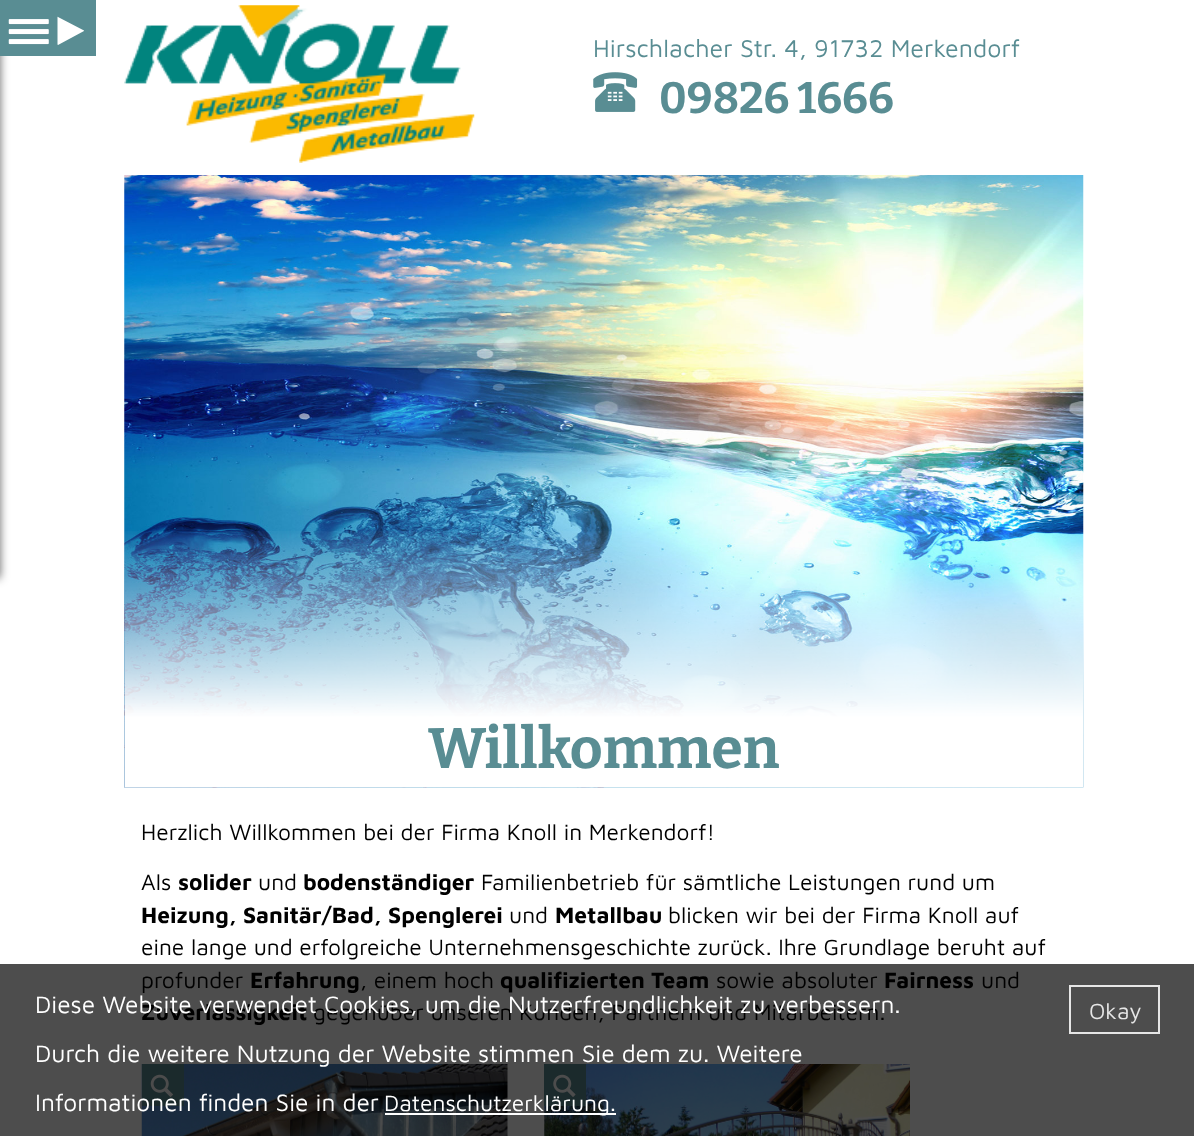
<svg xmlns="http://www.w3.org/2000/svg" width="1194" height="1136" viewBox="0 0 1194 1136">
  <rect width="100%" height="100%" fill="#fff"/>
  <path d="M0 964h1194v172H0z" fill="#4d4d4d"/>
  <path d="M-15 0h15v578H-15z" fill="#00000099" filter="blur(5px)"/>
  <path d="M0 0h96v56H0z" fill="#598d93"/>
  <image x="8" y="19" width="41" height="26" href="img/1.png"/>
  <path d="M58 17L84 30.5V31L58 45L57.5 44.5V17C57.5 16.5 57.5 16.5 58 17Z" fill="#fff"/>
  <image x="124" y="5" width="351" height="158" href="img/2.png"/>
  <image x="593" y="72" width="45" height="40" href="img/3.png"/>
  <image x="124" y="175" width="960" height="613" href="img/4.png"/>
  <image x="124" y="531" width="959" height="257" href="img/5.png"/>
  <image x="141" y="1064" width="367" height="72" href="img/6.png"/>
  <path d="M142 1064h42v42H142z" fill="#1b2a2c"/>
  <image x="150" y="1074" width="23" height="23" href="img/7.png"/>
  <image x="544" y="1064" width="366" height="72" href="img/8.png"/>
  <path d="M544 1064h42v42H544z" fill="#1b2a2c"/>
  <image x="553" y="1074" width="23" height="23" href="img/9.png"/>
  <path d="M385 1113h231v2H385z" fill="#fff"/>
  <path d="M1070 986h89v47H1070z" fill="none" stroke="#e6e6e6" stroke-width="2"/>
  <text x="593" y="57" font-family="Maven Pro" font-size="25" fill="#598d93">Hirschlacher Str. 4, 91732 Merkendorf</text>
  <text x="659" y="113" font-family="Bitter" font-size="43.75" font-weight="bold" fill="#598d93">09826 1666</text>
  <text x="428" y="768" font-family="Bitter" font-size="57" font-weight="bold" fill="#598d93">Willkommen</text>
  <g font-family="Maven Pro" font-size="22.75" fill="#000">
    <text x="141" y="840">Herzlich Willkommen bei der Firma Knoll in Merkendorf!</text>
    <text x="141" y="890">Als</text>
  </g>
  <text x="178" y="890" font-family="Maven Pro" font-size="22.75" font-weight="bold" fill="#000">solider</text>
  <text x="258" y="890" font-family="Maven Pro" font-size="22.75" fill="#000">und</text>
  <text x="303" y="890" font-family="Maven Pro" font-size="22.75" font-weight="bold" fill="#000">bodenständiger</text>
  <text x="481" y="890" font-family="Maven Pro" font-size="22.75" fill="#000">Familienbetrieb für sämtliche Leistungen rund um</text>
  <text x="141" y="923" font-family="Maven Pro" font-size="22.75" font-weight="bold" fill="#000">Heizung, Sanitär/Bad, Spenglerei</text>
  <text x="509" y="923" font-family="Maven Pro" font-size="22.75" fill="#000">und</text>
  <text x="555" y="923" font-family="Maven Pro" font-size="22.75" font-weight="bold" fill="#000">Metallbau</text>
  <g font-family="Maven Pro" font-size="22.75" fill="#000">
    <text x="668" y="923">blicken wir bei der Firma Knoll auf</text>
    <text x="141" y="955">eine lange und erfolgreiche Unternehmensgeschichte zurück. Ihre Grundlage beruht auf</text>
    <text x="141" y="988">profunder</text>
  </g>
  <text x="250" y="988" font-family="Maven Pro" font-size="22.75" font-weight="bold" fill="#000">Erfahrung</text>
  <text x="360" y="988" font-family="Maven Pro" font-size="22.75" fill="#000">, einem hoch</text>
  <text x="500" y="988" font-family="Maven Pro" font-size="22.75" font-weight="bold" fill="#000">qualifizierten Team</text>
  <text x="716" y="988" font-family="Maven Pro" font-size="22.75" fill="#000">sowie absoluter</text>
  <text x="884" y="988" font-family="Maven Pro" font-size="22.75" font-weight="bold" fill="#000">Fairness</text>
  <text x="981" y="988" font-family="Maven Pro" font-size="22.75" fill="#000">und</text>
  <text x="141" y="1020" font-family="Maven Pro" font-size="22.75" font-weight="bold" fill="#000">Zuverlässigkeit</text>
  <text x="313" y="1020" font-family="Maven Pro" font-size="22.75" fill="#000">gegenüber unseren Kunden, Partnern und Mitarbeitern.</text>
  <g font-family="Maven Pro" font-size="24.5" fill="#fff">
    <text x="35" y="1013">Diese Website verwendet Cookies, um die Nutzerfreundlichkeit zu verbessern.</text>
    <text x="35" y="1062">Durch die weitere Nutzung der Website stimmen Sie dem zu. Weitere</text>
    <text x="35" y="1111">Informationen finden Sie in der</text>
  </g>
  <text x="384" y="1111" font-family="Maven Pro" font-size="22.75" fill="#fff">Datenschutzerklärung.</text>
  <text x="1089" y="1019" font-family="Maven Pro" font-size="22.75" fill="#e6e6e6">Okay</text>
</svg>
